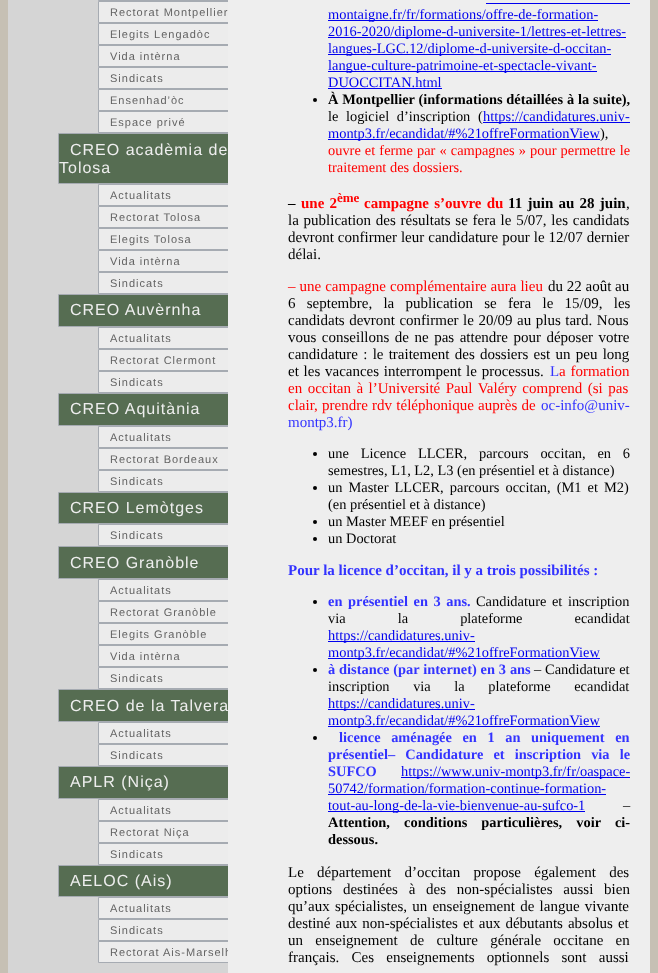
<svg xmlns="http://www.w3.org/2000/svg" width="658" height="973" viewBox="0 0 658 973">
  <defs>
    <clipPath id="clip1"><path d="M8 0h220v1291H8z"/></clipPath>
  </defs>
  <rect width="100%" height="100%" fill="#c6c0b4"/>
  <path d="M8 0h220v973H8z" fill="#d5d5d5"/>
  <path d="M228 0h422v973H228z" fill="#eee"/>
  <g clip-path="url(#clip1)">
    <path d="M98.5 -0.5h159v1H98.5z" fill="none" stroke="#a6abb2"/>
  </g>
  <path d="M99 2h129v20H99z" fill="#ececec"/>
  <g clip-path="url(#clip1)">
    <path d="M98.5 1.5h159v21H98.5z" fill="none" stroke="#a6abb2"/>
  </g>
  <path d="M99 24h129v20H99z" fill="#ececec"/>
  <g clip-path="url(#clip1)">
    <path d="M98.5 23.5h159v21H98.5z" fill="none" stroke="#a6abb2"/>
  </g>
  <path d="M99 46h129v20H99z" fill="#ececec"/>
  <g clip-path="url(#clip1)">
    <path d="M98.5 45.5h159v21H98.5z" fill="none" stroke="#a6abb2"/>
  </g>
  <path d="M99 68h129v20H99z" fill="#ececec"/>
  <g clip-path="url(#clip1)">
    <path d="M98.5 67.5h159v21H98.5z" fill="none" stroke="#a6abb2"/>
  </g>
  <path d="M99 90h129v20H99z" fill="#ececec"/>
  <g clip-path="url(#clip1)">
    <path d="M98.5 89.5h159v21H98.5z" fill="none" stroke="#a6abb2"/>
  </g>
  <path d="M99 112h129v20H99z" fill="#ececec"/>
  <g clip-path="url(#clip1)">
    <path d="M98.5 111.5h159v21H98.5z" fill="none" stroke="#a6abb2"/>
  </g>
  <path d="M59 134h169v49H59z" fill="#566d52"/>
  <g clip-path="url(#clip1)">
    <path d="M58.5 133.5h199v50H58.5z" fill="none" stroke="#a6abb2"/>
  </g>
  <path d="M99 185h129v20H99z" fill="#ececec"/>
  <g clip-path="url(#clip1)">
    <path d="M98.5 184.5h159v21H98.5z" fill="none" stroke="#a6abb2"/>
  </g>
  <path d="M99 207h129v20H99z" fill="#ececec"/>
  <g clip-path="url(#clip1)">
    <path d="M98.5 206.5h159v21H98.5z" fill="none" stroke="#a6abb2"/>
  </g>
  <path d="M99 229h129v20H99z" fill="#ececec"/>
  <g clip-path="url(#clip1)">
    <path d="M98.5 228.5h159v21H98.5z" fill="none" stroke="#a6abb2"/>
  </g>
  <path d="M99 251h129v20H99z" fill="#ececec"/>
  <g clip-path="url(#clip1)">
    <path d="M98.5 250.5h159v21H98.5z" fill="none" stroke="#a6abb2"/>
  </g>
  <path d="M99 273h129v20H99z" fill="#ececec"/>
  <g clip-path="url(#clip1)">
    <path d="M98.5 272.5h159v21H98.5z" fill="none" stroke="#a6abb2"/>
  </g>
  <path d="M59 295h169v31H59z" fill="#566d52"/>
  <g clip-path="url(#clip1)">
    <path d="M58.5 294.5h199v32H58.5z" fill="none" stroke="#a6abb2"/>
  </g>
  <path d="M99 328h129v20H99z" fill="#ececec"/>
  <g clip-path="url(#clip1)">
    <path d="M98.5 327.5h159v21H98.5z" fill="none" stroke="#a6abb2"/>
  </g>
  <path d="M99 350h129v20H99z" fill="#ececec"/>
  <g clip-path="url(#clip1)">
    <path d="M98.5 349.5h159v21H98.5z" fill="none" stroke="#a6abb2"/>
  </g>
  <path d="M99 372h129v20H99z" fill="#ececec"/>
  <g clip-path="url(#clip1)">
    <path d="M98.5 371.5h159v21H98.5z" fill="none" stroke="#a6abb2"/>
  </g>
  <path d="M59 394h169v31H59z" fill="#566d52"/>
  <g clip-path="url(#clip1)">
    <path d="M58.5 393.5h199v32H58.5z" fill="none" stroke="#a6abb2"/>
  </g>
  <path d="M99 427h129v20H99z" fill="#ececec"/>
  <g clip-path="url(#clip1)">
    <path d="M98.5 426.5h159v21H98.5z" fill="none" stroke="#a6abb2"/>
  </g>
  <path d="M99 449h129v20H99z" fill="#ececec"/>
  <g clip-path="url(#clip1)">
    <path d="M98.5 448.5h159v21H98.5z" fill="none" stroke="#a6abb2"/>
  </g>
  <path d="M99 471h129v20H99z" fill="#ececec"/>
  <g clip-path="url(#clip1)">
    <path d="M98.5 470.5h159v21H98.5z" fill="none" stroke="#a6abb2"/>
  </g>
  <path d="M59 493h169v30H59z" fill="#566d52"/>
  <g clip-path="url(#clip1)">
    <path d="M58.5 492.5h199v31H58.5z" fill="none" stroke="#a6abb2"/>
  </g>
  <path d="M99 525h129v20H99z" fill="#ececec"/>
  <g clip-path="url(#clip1)">
    <path d="M98.5 524.5h159v21H98.5z" fill="none" stroke="#a6abb2"/>
  </g>
  <path d="M59 547h169v31H59z" fill="#566d52"/>
  <g clip-path="url(#clip1)">
    <path d="M58.5 546.5h199v32H58.5z" fill="none" stroke="#a6abb2"/>
  </g>
  <path d="M99 580h129v20H99z" fill="#ececec"/>
  <g clip-path="url(#clip1)">
    <path d="M98.5 579.5h159v21H98.5z" fill="none" stroke="#a6abb2"/>
  </g>
  <path d="M99 602h129v20H99z" fill="#ececec"/>
  <g clip-path="url(#clip1)">
    <path d="M98.5 601.5h159v21H98.5z" fill="none" stroke="#a6abb2"/>
  </g>
  <path d="M99 624h129v20H99z" fill="#ececec"/>
  <g clip-path="url(#clip1)">
    <path d="M98.5 623.5h159v21H98.5z" fill="none" stroke="#a6abb2"/>
  </g>
  <path d="M99 646h129v20H99z" fill="#ececec"/>
  <g clip-path="url(#clip1)">
    <path d="M98.5 645.5h159v21H98.5z" fill="none" stroke="#a6abb2"/>
  </g>
  <path d="M99 668h129v20H99z" fill="#ececec"/>
  <g clip-path="url(#clip1)">
    <path d="M98.5 667.5h159v21H98.5z" fill="none" stroke="#a6abb2"/>
  </g>
  <path d="M59 690h169v31H59z" fill="#566d52"/>
  <g clip-path="url(#clip1)">
    <path d="M58.5 689.5h199v32H58.5z" fill="none" stroke="#a6abb2"/>
  </g>
  <path d="M99 723h129v20H99z" fill="#ececec"/>
  <g clip-path="url(#clip1)">
    <path d="M98.5 722.5h159v21H98.5z" fill="none" stroke="#a6abb2"/>
  </g>
  <path d="M99 745h129v20H99z" fill="#ececec"/>
  <g clip-path="url(#clip1)">
    <path d="M98.5 744.5h159v21H98.5z" fill="none" stroke="#a6abb2"/>
  </g>
  <path d="M59 767h169v31H59z" fill="#566d52"/>
  <g clip-path="url(#clip1)">
    <path d="M58.5 766.5h199v32H58.5z" fill="none" stroke="#a6abb2"/>
  </g>
  <path d="M99 800h129v20H99z" fill="#ececec"/>
  <g clip-path="url(#clip1)">
    <path d="M98.5 799.5h159v21H98.5z" fill="none" stroke="#a6abb2"/>
  </g>
  <path d="M99 822h129v20H99z" fill="#ececec"/>
  <g clip-path="url(#clip1)">
    <path d="M98.5 821.5h159v21H98.5z" fill="none" stroke="#a6abb2"/>
  </g>
  <path d="M99 844h129v20H99z" fill="#ececec"/>
  <g clip-path="url(#clip1)">
    <path d="M98.5 843.5h159v21H98.5z" fill="none" stroke="#a6abb2"/>
  </g>
  <path d="M59 866h169v30H59z" fill="#566d52"/>
  <g clip-path="url(#clip1)">
    <path d="M58.5 865.5h199v31H58.5z" fill="none" stroke="#a6abb2"/>
  </g>
  <path d="M99 898h129v20H99z" fill="#ececec"/>
  <g clip-path="url(#clip1)">
    <path d="M98.5 897.5h159v21H98.5z" fill="none" stroke="#a6abb2"/>
  </g>
  <path d="M99 920h129v20H99z" fill="#ececec"/>
  <g clip-path="url(#clip1)">
    <path d="M98.5 919.5h159v21H98.5z" fill="none" stroke="#a6abb2"/>
  </g>
  <path d="M99 942h129v20H99z" fill="#ececec"/>
  <g clip-path="url(#clip1)">
    <path d="M98.5 941.5h159v21H98.5z" fill="none" stroke="#a6abb2"/>
  </g>
  <path d="M486 3h144v1H486z" fill="#00e"/>
  <path d="M328 20h270v1H328z" fill="#00e"/>
  <path d="M328 37h298v1H328z" fill="#00e"/>
  <path d="M328 54h283v1H328z" fill="#00e"/>
  <path d="M328 71h269v1H328z" fill="#00e"/>
  <path d="M328 88h114v1H328z" fill="#00e"/>
  <circle cx="315" cy="100" r="2" fill="#000"/>
  <path d="M483 122h147v1H483z" fill="#00e"/>
  <path d="M328 139h272v1H328z" fill="#00e"/>
  <circle cx="315" cy="454" r="2" fill="#000"/>
  <circle cx="315" cy="488" r="2" fill="#000"/>
  <circle cx="315" cy="522" r="2" fill="#000"/>
  <circle cx="315" cy="539" r="2" fill="#000"/>
  <circle cx="315" cy="602" r="2" fill="#000"/>
  <path d="M328 641h147v1H328z" fill="#00e"/>
  <path d="M328 658h272v1H328z" fill="#00e"/>
  <circle cx="315" cy="670" r="2" fill="#000"/>
  <path d="M328 709h147v1H328z" fill="#00e"/>
  <path d="M328 726h272v1H328z" fill="#00e"/>
  <circle cx="315" cy="738" r="2" fill="#000"/>
  <path d="M401 777h229v1H401z" fill="#00e"/>
  <path d="M328 794h278v1H328z" fill="#00e"/>
  <path d="M328 811h257v1H328z" fill="#00e"/>
  <g font-family="Liberation Sans" font-size="11" letter-spacing="1" fill="#636363">
    <text x="110" y="16">Rectorat Montpellier</text>
    <text x="110" y="38">Elegits Lengadòc</text>
    <text x="110" y="60">Vida intèrna</text>
    <text x="110" y="82">Sindicats</text>
    <text x="110" y="104">Ensenhad’òc</text>
    <text x="110" y="126">Espace privé</text>
  </g>
  <g font-family="Liberation Sans" font-size="16" letter-spacing="1" fill="#eee">
    <text x="70" y="155">CREO acadèmia de</text>
    <text x="59" y="173">Tolosa</text>
  </g>
  <g font-family="Liberation Sans" font-size="11" letter-spacing="1" fill="#636363">
    <text x="110" y="199">Actualitats</text>
    <text x="110" y="221">Rectorat Tolosa</text>
    <text x="110" y="243">Elegits Tolosa</text>
    <text x="110" y="265">Vida intèrna</text>
    <text x="110" y="287">Sindicats</text>
  </g>
  <text x="70" y="315" font-family="Liberation Sans" font-size="16" letter-spacing="1" fill="#eee">CREO Auvèrnha</text>
  <g font-family="Liberation Sans" font-size="11" letter-spacing="1" fill="#636363">
    <text x="110" y="342">Actualitats</text>
    <text x="110" y="364">Rectorat Clermont</text>
    <text x="110" y="386">Sindicats</text>
  </g>
  <text x="70" y="414" font-family="Liberation Sans" font-size="16" letter-spacing="1" fill="#eee">CREO Aquitània</text>
  <g font-family="Liberation Sans" font-size="11" letter-spacing="1" fill="#636363">
    <text x="110" y="441">Actualitats</text>
    <text x="110" y="463">Rectorat Bordeaux</text>
    <text x="110" y="485">Sindicats</text>
  </g>
  <text x="70" y="513" font-family="Liberation Sans" font-size="16" letter-spacing="1" fill="#eee">CREO Lemòtges</text>
  <text x="110" y="539" font-family="Liberation Sans" font-size="11" letter-spacing="1" fill="#636363">Sindicats</text>
  <text x="70" y="568" font-family="Liberation Sans" font-size="16" letter-spacing="1" fill="#eee">CREO Granòble</text>
  <g font-family="Liberation Sans" font-size="11" letter-spacing="1" fill="#636363">
    <text x="110" y="594">Actualitats</text>
    <text x="110" y="616">Rectorat Granòble</text>
    <text x="110" y="638">Elegits Granòble</text>
    <text x="110" y="660">Vida intèrna</text>
    <text x="110" y="682">Sindicats</text>
  </g>
  <text x="70" y="711" font-family="Liberation Sans" font-size="16" letter-spacing="1" fill="#eee">CREO de la Talvera</text>
  <g font-family="Liberation Sans" font-size="11" letter-spacing="1" fill="#636363">
    <text x="110" y="737">Actualitats</text>
    <text x="110" y="759">Sindicats</text>
  </g>
  <text x="70" y="787" font-family="Liberation Sans" font-size="16" letter-spacing="1" fill="#eee">APLR (Niça)</text>
  <g font-family="Liberation Sans" font-size="11" letter-spacing="1" fill="#636363">
    <text x="110" y="814">Actualitats</text>
    <text x="110" y="836">Rectorat Niça</text>
    <text x="110" y="858">Sindicats</text>
  </g>
  <text x="70" y="886" font-family="Liberation Sans" font-size="16" letter-spacing="1" fill="#eee">AELOC (Ais)</text>
  <g font-family="Liberation Sans" font-size="11" letter-spacing="1" fill="#636363">
    <text x="110" y="912">Actualitats</text>
    <text x="110" y="934">Sindicats</text>
  </g>
  <g clip-path="url(#clip1)">
    <text x="110" y="956" font-family="Liberation Sans" font-size="11" letter-spacing="1" fill="#636363">Rectorat Ais-Marselh</text>
  </g>
  <g font-family="Liberation Serif" font-size="14.4" fill="#00e">
    <text x="328" y="19">montaigne.fr/fr/formations/offre-de-formation-</text>
    <text x="328" y="36">2016-2020/diplome-d-universite-1/lettres-et-lettres-</text>
    <text x="328" y="53">langues-LGC.12/diplome-d-universite-d-occitan-</text>
    <text x="328" y="70">langue-culture-patrimoine-et-spectacle-vivant-</text>
    <text x="328" y="87">DUOCCITAN.html</text>
  </g>
  <text x="328" y="104" word-spacing="0.25" font-family="Liberation Serif" font-size="14.4" font-weight="bold" fill="#000">À Montpellier (informations détaillées à la suite),</text>
  <text x="328" y="121" word-spacing="4" font-family="Liberation Serif" font-size="14.4" fill="#000">le logiciel d’inscription (</text>
  <g font-family="Liberation Serif" font-size="14.4" fill="#00e">
    <text x="483" y="121">https://candidatures.univ-</text>
    <text x="328" y="138">montp3.fr/ecandidat/#%21offreFormationView</text>
  </g>
  <text x="600" y="138" font-family="Liberation Serif" font-size="14.4" fill="#000">),</text>
  <g font-family="Liberation Serif" font-size="14.4" fill="#f00">
    <text x="328" y="155" word-spacing="0.5">ouvre et ferme par « campagnes » pour permettre le</text>
    <text x="328" y="172">traitement des dossiers.</text>
  </g>
  <text x="288" y="208" font-family="Liberation Serif" font-size="15" font-weight="bold" fill="#000">–</text>
  <text x="301" y="208" word-spacing="1.5" font-family="Liberation Serif" font-size="15" font-weight="bold" fill="#f00">une 2</text>
  <text x="337" y="202" font-family="Liberation Serif" font-size="13" font-weight="bold" fill="#f00">ème</text>
  <text x="364" y="208" word-spacing="1.5" font-family="Liberation Serif" font-size="15" font-weight="bold" fill="#f00">campagne s’ouvre du</text>
  <text x="508" y="208" word-spacing="1.5" font-family="Liberation Serif" font-size="15" font-weight="bold" fill="#000">11 juin au 28 juin</text>
  <g font-family="Liberation Serif" font-size="15" fill="#000">
    <text x="626" y="208">,</text>
    <text x="288" y="225" word-spacing="1">la publication des résultats se fera le 5/07, les candidats</text>
    <text x="288" y="242" word-spacing="0.25">devront confirmer leur candidature pour le 12/07 dernier</text>
    <text x="288" y="259">délai.</text>
  </g>
  <text x="288" y="291" word-spacing="0.25" font-family="Liberation Serif" font-size="15" fill="#f00">– une campagne complémentaire aura lieu</text>
  <g font-family="Liberation Serif" font-size="15" fill="#000">
    <text x="548" y="291">du 22 août au</text>
    <text x="288" y="308" word-spacing="7.5">6 septembre, la publication se fera le 15/09, les</text>
    <text x="288" y="325" word-spacing="0.75">candidats devront confirmer le 20/09 au plus tard. Nous</text>
    <text x="288" y="342" word-spacing="1.75">vous conseillons de ne pas attendre pour déposer votre</text>
    <text x="288" y="359" word-spacing="1.5">candidature : le traitement des dossiers est un peu long</text>
    <text x="288" y="376" word-spacing="1">et les vacances interrompent le processus.</text>
  </g>
  <text x="550" y="376" font-family="Liberation Serif" font-size="15" fill="#33f">L</text>
  <g font-family="Liberation Serif" font-size="15" fill="#f00">
    <text x="559" y="376" word-spacing="1">a formation</text>
    <text x="288" y="393" word-spacing="1.75">en occitan à l’Université Paul Valéry comprend (si pas</text>
    <text x="288" y="410" word-spacing="0.5">clair, prendre rdv téléphonique auprès de</text>
  </g>
  <g font-family="Liberation Serif" font-size="15" fill="#33f">
    <text x="541" y="410">oc-info@univ-</text>
    <text x="288" y="427">montp3.fr)</text>
  </g>
  <g font-family="Liberation Serif" font-size="14.4" fill="#000">
    <text x="328" y="458" word-spacing="8.25">une Licence LLCER, parcours occitan, en 6</text>
    <text x="328" y="475">semestres, L1, L2, L3 (en présentiel et à distance)</text>
    <text x="328" y="492" word-spacing="2.5">un Master LLCER, parcours occitan, (M1 et M2)</text>
    <text x="328" y="509">(en présentiel et à distance)</text>
    <text x="328" y="526">un Master MEEF en présentiel</text>
    <text x="328" y="543">un Doctorat</text>
  </g>
  <text x="288" y="575" font-family="Liberation Serif" font-size="15" font-weight="bold" fill="#33f">Pour la licence d’occitan, il y a trois possibilités :</text>
  <text x="328" y="606" word-spacing="2" font-family="Liberation Serif" font-size="14.4" font-weight="bold" fill="#33f">en présentiel en 3 ans.</text>
  <g font-family="Liberation Serif" font-size="14.4" fill="#000">
    <text x="476" y="606" word-spacing="2">Candidature et inscription</text>
    <text x="328" y="623" word-spacing="48.5">via la plateforme ecandidat</text>
  </g>
  <g font-family="Liberation Serif" font-size="14.4" fill="#00e">
    <text x="328" y="640">https://candidatures.univ-</text>
    <text x="328" y="657">montp3.fr/ecandidat/#%21offreFormationView</text>
  </g>
  <text x="328" y="674" word-spacing="0.25" font-family="Liberation Serif" font-size="14.4" font-weight="bold" fill="#33f">à distance (par internet) en 3 ans</text>
  <g font-family="Liberation Serif" font-size="14.4" fill="#000">
    <text x="534" y="674" word-spacing="0.25">– Candidature et</text>
    <text x="328" y="691" word-spacing="20">inscription via la plateforme ecandidat</text>
  </g>
  <g font-family="Liberation Serif" font-size="14.4" fill="#00e">
    <text x="328" y="708">https://candidatures.univ-</text>
    <text x="328" y="725">montp3.fr/ecandidat/#%21offreFormationView</text>
  </g>
  <g font-family="Liberation Serif" font-size="14.4" font-weight="bold" fill="#33f">
    <text x="339" y="742" word-spacing="7">licence aménagée en 1 an uniquement en</text>
    <text x="328" y="759" word-spacing="6.5">présentiel– Candidature et inscription via le</text>
    <text x="328" y="776">SUFCO</text>
  </g>
  <g font-family="Liberation Serif" font-size="14.4" fill="#00e">
    <text x="401" y="776">https://www.univ-montp3.fr/fr/oaspace-</text>
    <text x="328" y="793">50742/formation/formation-continue-formation-</text>
    <text x="328" y="810">tout-au-long-de-la-vie-bienvenue-au-sufco-1</text>
  </g>
  <text x="623" y="810" font-family="Liberation Serif" font-size="14.4" fill="#000">–</text>
  <g font-family="Liberation Serif" font-size="14.4" font-weight="bold" fill="#000">
    <text x="328" y="827" word-spacing="10.5">Attention, conditions particulières, voir ci-</text>
    <text x="328" y="844">dessous.</text>
  </g>
  <g font-family="Liberation Serif" font-size="15" fill="#000">
    <text x="288" y="877" word-spacing="9.5">Le département d’occitan propose également des</text>
    <text x="288" y="894" word-spacing="7">options destinées à des non-spécialistes aussi bien</text>
    <text x="288" y="911" word-spacing="1.5">qu’aux spécialistes, un enseignement de langue vivante</text>
    <text x="288" y="928" word-spacing="1.25">destiné aux non-spécialistes et aux débutants absolus et</text>
    <text x="288" y="945" word-spacing="8.5">un enseignement de culture générale occitane en</text>
    <text x="288" y="962" word-spacing="8.5">français. Ces enseignements optionnels sont aussi</text>
  </g>
</svg>
